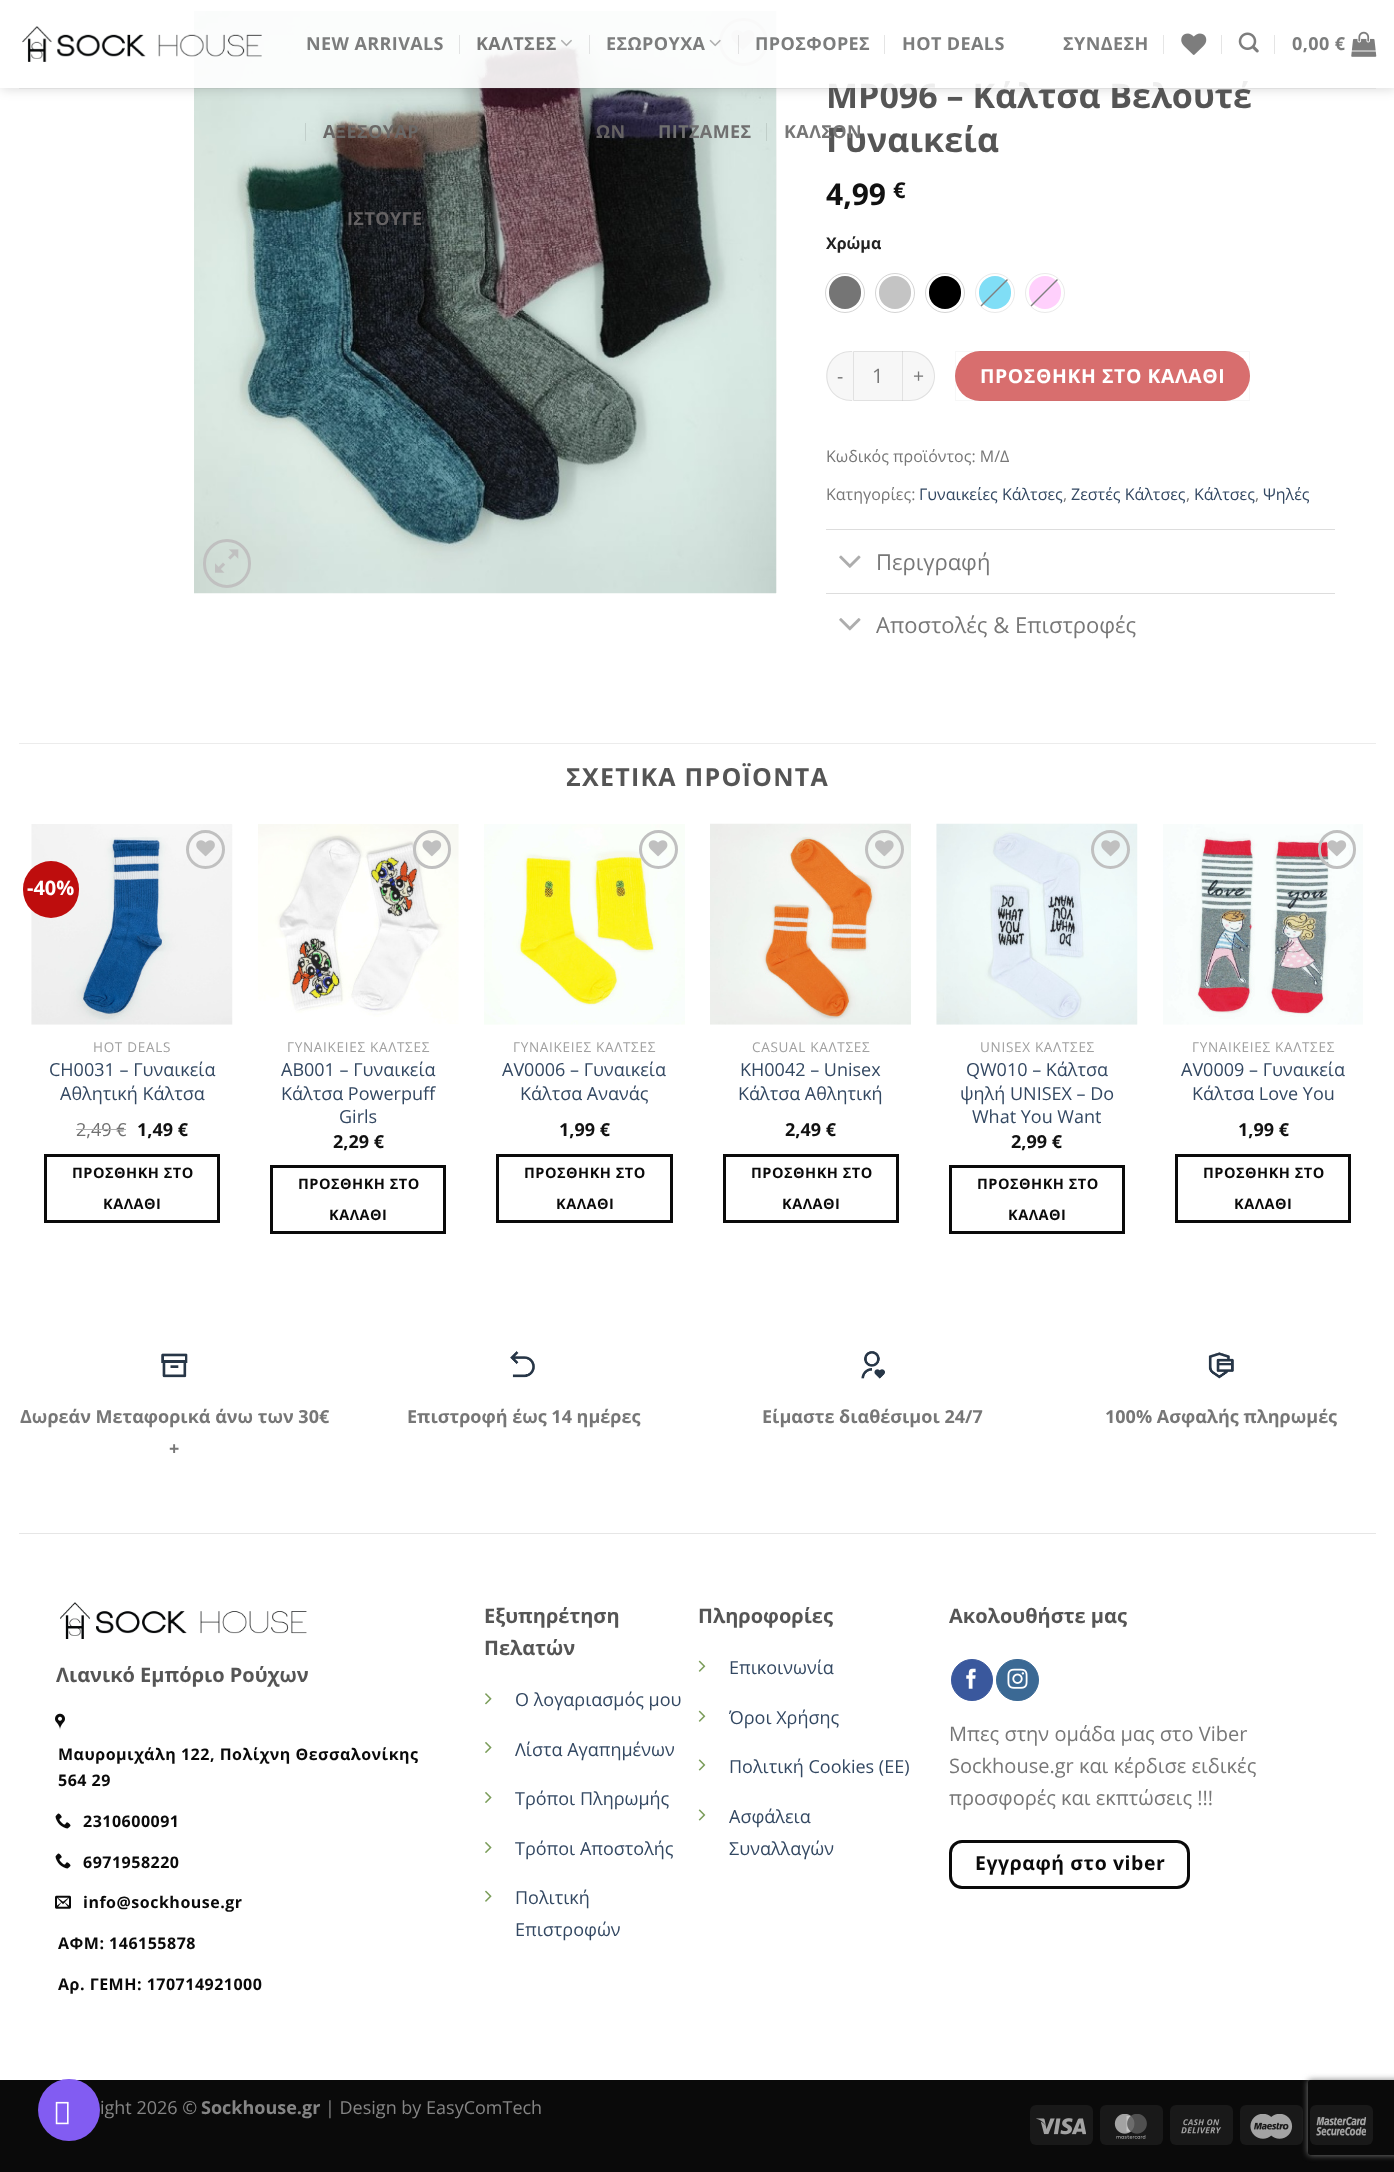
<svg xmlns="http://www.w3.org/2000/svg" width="1394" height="2172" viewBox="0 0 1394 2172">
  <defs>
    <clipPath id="clip1"><path d="M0 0H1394V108H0ZM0 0H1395V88H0Z" clip-rule="evenodd"/></clipPath>
    <clipPath id="clip2"><path d="M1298 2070H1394V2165H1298ZM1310.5 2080H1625.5C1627 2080 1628 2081 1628 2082.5V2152.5C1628 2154 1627 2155 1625.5 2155H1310.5C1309 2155 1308 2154 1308 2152.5V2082.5C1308 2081 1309 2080 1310.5 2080Z" clip-rule="evenodd"/></clipPath>
  </defs>
  <rect width="100%" height="100%" fill="#fff"/>
  <image x="194" y="11" width="583" height="583" href="img/7.png"/>
  <image x="776" y="11" width="1" height="582" href="img/8.png"/>
  <rect x="720.5" y="19.5" width="46" height="45" rx="22.5" fill="none" stroke="#c0c0c0" stroke-width="3"/>
  <image x="731" y="30" width="24" height="20" href="img/9.png"/>
  <g clip-path="url(#clip1)">
    <path d="M1 1h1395v88H1z" fill="#00000026" filter="blur(6px)"/>
  </g>
  <path d="M305 123h1v18H305z" fill="#c2cfcb"/>
  <path d="M433 123h1v18H433z" fill="#0000001a"/>
  <path d="M640 123h1v18H640z" fill="#0000001a"/>
  <path d="M766 123h1v18H766z" fill="#c0cec9"/>
  <path d="M305 210h1v19H305z" fill="#0000001a"/>
  <path d="M19 88h1357v1H19z" fill="#7777771a"/>
  <rect x="204.5" y="540.5" width="45" height="46" rx="22.5" fill="none" stroke="#c0c0c0" stroke-width="3"/>
  <image x="215" y="549" width="24" height="24" href="img/10.png"/>
  <circle cx="845" cy="293" r="19.5" fill="none" stroke="#d5d5d5"/>
  <rect x="829" y="276" width="32" height="33" rx="16" fill="#757575"/>
  <circle cx="895" cy="293" r="19.5" fill="none" stroke="#d5d5d5"/>
  <rect x="879" y="276" width="32" height="33" rx="16" fill="#c4c4c4"/>
  <circle cx="945" cy="293" r="19.5" fill="none" stroke="#d5d5d5"/>
  <rect x="929" y="276" width="32" height="33" rx="16" fill="#000"/>
  <circle cx="995" cy="293" r="19.5" fill="none" stroke="#eaeaea"/>
  <rect x="979" y="276" width="32" height="33" rx="16" fill="#80def6"/>
  <path d="M980.5 305.5L1007 279L1008 280L981.5 306.5Z" fill="#808080"/>
  <circle cx="1045" cy="293" r="19.5" fill="none" stroke="#eaeaea"/>
  <rect x="1029" y="276" width="32" height="33" rx="16" fill="#ffd0fc"/>
  <path d="M1030.5 305.5L1057 279L1058 280L1031.5 306.5Z" fill="#808080"/>
  <path d="M851 351H853V401H851C837 401 826 390 826 376C826 362 837 351 851 351Z" fill="#f7f7f7"/>
  <path d="M851 351H852V401C818 401 818 351 851 351ZM851 352H852V400C819 400 820 352 851 352Z" fill="#00000017" fill-rule="evenodd"/>
  <path d="M853.5 351.5h49v49H853.5z" fill="#f7f7f7" stroke="#e1e1e1"/>
  <path d="M903 351H910C924 351 935 362 935 376C935 390 924 401 910 401H903Z" fill="#f7f7f7"/>
  <path d="M902 351H910C924 351 935 362 935 376C935 390 924 401 910 401H902ZM902 352H910C923 352 934 363 934 376C934 389 923 400 910 400H902Z" fill="#00000017" fill-rule="evenodd"/>
  <rect x="955" y="351" width="295" height="50" rx="25" fill="#d86e6e"/>
  <path d="M955.5 351.5h294v49H955.5z" fill="none" stroke="#6666660d"/>
  <path d="M826 529h509v1H826z" fill="#ddd"/>
  <image x="839" y="555" width="22" height="13" href="img/11.png"/>
  <path d="M826 593h509v1H826z" fill="#ddd"/>
  <image x="839" y="618" width="22" height="13" href="img/12.png"/>
  <path d="M19 743h1357v1H19z" fill="#ececec"/>
  <image x="31" y="824" width="202" height="201" href="img/13.png"/>
  <rect x="23" y="861" width="56" height="57" rx="28" fill="#be0d0d"/>
  <circle cx="205.5" cy="849.5" r="18" fill="none" stroke="#c0c0c0" stroke-width="3"/>
  <image x="196" y="840" width="19" height="17" href="img/14.png"/>
  <path d="M45.5 1155.5h173v66H45.5z" fill="none" stroke="#0a0a0a" stroke-width="3"/>
  <image x="258" y="824" width="201" height="200" href="img/15.png"/>
  <rect x="414.5" y="831.5" width="35" height="36" rx="17.5" fill="none" stroke="#c0c0c0" stroke-width="3"/>
  <image x="422" y="840" width="20" height="17" href="img/16.png"/>
  <path d="M271.5 1166.5h173v66H271.5z" fill="none" stroke="#0a0a0a" stroke-width="3"/>
  <image x="484" y="824" width="201" height="201" href="img/17.png"/>
  <circle cx="658.5" cy="849.5" r="18" fill="none" stroke="#c0c0c0" stroke-width="3"/>
  <image x="648" y="840" width="20" height="17" href="img/18.png"/>
  <path d="M497.5 1155.5h174v66H497.5z" fill="none" stroke="#0a0a0a" stroke-width="3"/>
  <image x="710" y="823" width="201" height="202" href="img/19.png"/>
  <circle cx="884.5" cy="849.5" r="18" fill="none" stroke="#c0c0c0" stroke-width="3"/>
  <image x="875" y="840" width="19" height="17" href="img/20.png"/>
  <path d="M724.5 1155.5h173v66H724.5z" fill="none" stroke="#0a0a0a" stroke-width="3"/>
  <image x="936" y="823" width="202" height="202" href="img/21.png"/>
  <circle cx="1110.5" cy="849.5" r="18" fill="none" stroke="#c0c0c0" stroke-width="3"/>
  <image x="1101" y="840" width="19" height="17" href="img/22.png"/>
  <path d="M950.5 1166.5h173v66H950.5z" fill="none" stroke="#0a0a0a" stroke-width="3"/>
  <image x="1163" y="824" width="200" height="201" href="img/23.png"/>
  <rect x="1319.5" y="831.5" width="35" height="36" rx="17.5" fill="none" stroke="#c0c0c0" stroke-width="3"/>
  <image x="1327" y="840" width="20" height="17" href="img/24.png"/>
  <path d="M1176.5 1155.5h173v66H1176.5z" fill="none" stroke="#0a0a0a" stroke-width="3"/>
  <image x="161" y="1353" width="27" height="25" href="img/25.png"/>
  <image x="510" y="1351" width="25" height="27" href="img/26.png"/>
  <image x="861" y="1351" width="24" height="28" href="img/27.png"/>
  <image x="1208" y="1352" width="26" height="27" href="img/28.png"/>
  <path d="M19 1533h1357v1H19z" fill="#e6e6e6"/>
  <image x="60" y="1602" width="247" height="37" href="img/29.png"/>
  <image x="55" y="1713" width="10" height="17" href="img/30.png"/>
  <image x="55" y="1813" width="16" height="16" href="img/31.png"/>
  <image x="55" y="1853" width="16" height="16" href="img/31.png"/>
  <image x="55" y="1895" width="16" height="14" href="img/32.png"/>
  <image x="485" y="1693" width="7" height="12" href="img/33.png"/>
  <image x="485" y="1742" width="7" height="11" href="img/34.png"/>
  <image x="485" y="1792" width="7" height="11" href="img/34.png"/>
  <image x="485" y="1842" width="7" height="11" href="img/34.png"/>
  <image x="485" y="1890" width="7" height="12" href="img/35.png"/>
  <image x="698" y="1660" width="8" height="12" href="img/36.png"/>
  <image x="698" y="1710" width="8" height="12" href="img/36.png"/>
  <image x="698" y="1759" width="8" height="12" href="img/37.png"/>
  <image x="698" y="1809" width="8" height="12" href="img/37.png"/>
  <circle cx="972" cy="1680" r="20.5" fill="#3a589d" stroke="#3a589d"/>
  <image x="966" y="1668" width="10" height="21" href="img/38.png"/>
  <rect x="996.5" y="1659.5" width="42" height="41" rx="20.5" fill="#3b6994" stroke="#3b6994"/>
  <image x="1007" y="1668" width="21" height="21" href="img/39.png"/>
  <rect x="950.5" y="1841.5" width="238" height="46" rx="11.5" fill="none" stroke="#0a0a0a" stroke-width="3"/>
  <path d="M0 2080h1394v92H0z" fill="#0a0a0a"/>
  <rect x="1030" y="2105" width="63" height="40" rx="6" fill="#191919"/>
  <image x="1036" y="2118" width="50" height="17" href="img/40.png"/>
  <rect x="1100" y="2105" width="63" height="40" rx="6" fill="#191919"/>
  <image x="1114" y="2114" width="33" height="25" href="img/41.png"/>
  <rect x="1170" y="2105" width="63" height="40" rx="6" fill="#191919"/>
  <image x="1181" y="2119" width="41" height="15" href="img/42.png"/>
  <rect x="1240" y="2105" width="63" height="40" rx="6" fill="#191919"/>
  <image x="1250" y="2114" width="43" height="25" href="img/43.png"/>
  <rect x="1310" y="2105" width="63" height="40" rx="6" fill="#191919"/>
  <image x="1316" y="2116" width="50" height="20" href="img/44.png"/>
  <g clip-path="url(#clip2)">
    <rect x="1308" y="2080" width="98" height="75" rx="2.5" fill="#808080" filter="blur(3px)"/>
  </g>
  <circle cx="69" cy="2110" r="31" fill="#825cf2"/>
  <image x="55" y="2101" width="14" height="24" href="img/45.png"/>
  <text x="323" y="138" font-family="Open Sans" font-size="18" font-weight="bold" letter-spacing="0.4" fill="#6a6867">ΑΞΕΣΟΥΑΡ</text>
  <text x="596" y="138" font-family="Open Sans" font-size="18" font-weight="bold" letter-spacing="0.4" fill="#656263">ΩΝ</text>
  <text x="658" y="138" font-family="Open Sans" font-size="18" font-weight="bold" letter-spacing="0.4" fill="#707070">ΠΙΤΖΑΜΕΣ</text>
  <text x="347" y="225" font-family="Open Sans" font-size="18" font-weight="bold" letter-spacing="0.4" fill="#656263">ΙΣΤΟΥΓΕ</text>
  <text x="826" y="108" font-family="Open Sans" font-size="34" font-weight="bold" fill="#555">MP096 – Κάλτσα Bελουτέ</text>
  <path d="M0 11h1394v77H0z" fill="#ffffffe6"/>
  <path d="M1274 35h1v19H1274z" fill="#0000001a"/>
  <image x="1351" y="31" width="26" height="26" href="img/6.png"/>
  <text x="1292" y="50" font-family="Open Sans" font-size="18" font-weight="bold" letter-spacing="0.4" fill="#7c7d7d">0,00 €</text>
  <path d="M1221 35h1v19H1221z" fill="#0000001a"/>
  <image x="1238" y="32" width="21" height="21" href="img/5.png"/>
  <path d="M1163 35h1v19H1163z" fill="#e6e6e6"/>
  <image x="1181" y="33" width="26" height="22" href="img/4.png"/>
  <text x="1063" y="50" font-family="Open Sans" font-size="18" font-weight="bold" letter-spacing="0.4" fill="#7c7d7d">ΣΥΝΔΕΣΗ</text>
  <path d="M884 35h1v19H884z" fill="#0000001a"/>
  <text x="902" y="50" font-family="Open Sans" font-size="18" font-weight="bold" letter-spacing="0.4" fill="#7c7d7d">HOT DEALS</text>
  <path d="M738 35h1v19H738z" fill="#0000001a"/>
  <text x="755" y="50" font-family="Open Sans" font-size="18" font-weight="bold" letter-spacing="0.4" fill="#7c7d7d">ΠΡΟΣΦΟΡΕΣ</text>
  <path d="M589 35h1v19H589z" fill="#e1e2e2"/>
  <image x="709" y="39" width="12" height="8" href="img/3.png"/>
  <text x="606" y="50" font-family="Open Sans" font-size="18" font-weight="bold" letter-spacing="0.4" fill="#7c7d7d">ΕΣΩΡΟΥΧΑ</text>
  <path d="M459 35h1v19H459z" fill="#e2e3e3"/>
  <image x="561" y="39" width="11" height="8" href="img/2.png"/>
  <text x="476" y="50" font-family="Open Sans" font-size="18" font-weight="bold" letter-spacing="0.4" fill="#777">ΚΑΛΤΣΕΣ</text>
  <text x="306" y="50" font-family="Open Sans" font-size="18" font-weight="bold" letter-spacing="0.4" fill="#7c7d7d">NEW ARRIVALS</text>
  <image x="22" y="26" width="240" height="36" href="img/1.png"/>
  <text x="826" y="152" font-family="Open Sans" font-size="34" font-weight="bold" fill="#555">Γυναικεία</text>
  <text x="784" y="138" font-family="Open Sans" font-size="18" font-weight="bold" letter-spacing="0.4" fill="#777">ΚΑΛΣΟΝ</text>
  <text x="826" y="205" font-family="Open Sans" font-size="30" font-weight="bold" fill="#111">4,99</text>
  <text x="893" y="198" font-family="Open Sans" font-size="22" font-weight="bold" fill="#111">€</text>
  <text x="826" y="249" font-family="Open Sans" font-size="16" font-weight="bold" fill="#222">Χρώμα</text>
  <text x="837" y="383" font-family="Open Sans" font-size="19.4" letter-spacing="0.6" fill="#777">-</text>
  <text x="872" y="383" font-family="Open Sans" font-size="20" fill="#777">1</text>
  <text x="913" y="383" font-family="Open Sans" font-size="19.4" letter-spacing="0.6" fill="#777">+</text>
  <text x="980" y="383" font-family="Open Sans" font-size="19.4" font-weight="bold" letter-spacing="0.6" fill="#fff">ΠΡΟΣΘΗΚΗ ΣΤΟ ΚΑΛΑΘΙ</text>
  <g font-family="Open Sans" font-size="16" fill="#777">
    <text x="826" y="462">Κωδικός προϊόντος: Μ/Δ</text>
    <text x="826" y="500">Κατηγορίες:</text>
  </g>
  <text x="919" y="500" font-family="Open Sans" font-size="16" fill="#334862">Γυναικείες Κάλτσες</text>
  <text x="1063" y="500" font-family="Open Sans" font-size="16" fill="#777">,</text>
  <text x="1071" y="500" font-family="Open Sans" font-size="16" fill="#334862">Ζεστές Κάλτσες</text>
  <text x="1186" y="500" font-family="Open Sans" font-size="16" fill="#777">,</text>
  <text x="1194" y="500" font-family="Open Sans" font-size="16" fill="#334862">Κάλτσες</text>
  <text x="1255" y="500" font-family="Open Sans" font-size="16" fill="#777">,</text>
  <text x="1263" y="500" font-family="Open Sans" font-size="16" fill="#334862">Ψηλές</text>
  <g font-family="Open Sans" font-size="22" fill="#777">
    <text x="876" y="570">Περιγραφή</text>
    <text x="876" y="633">Αποστολές &amp; Επιστροφές</text>
  </g>
  <text x="566" y="786" font-family="Open Sans" font-size="25" font-weight="bold" letter-spacing="1.25" fill="#555">ΣΧΕΤΙΚΑ ΠΡΟΪΟΝΤΑ</text>
  <text x="27" y="895" font-family="Open Sans" font-size="20" font-weight="bold" fill="#fff">-40%</text>
  <text x="93" y="1052" font-family="Open Sans" font-size="13.5" letter-spacing="0.7" fill="#a0a0a0">HOT DEALS</text>
  <g font-family="Open Sans" font-size="18" fill="#334862">
    <text x="49" y="1076">CH0031 – Γυναικεία</text>
    <text x="60" y="1100">Αθλητική Κάλτσα</text>
  </g>
  <text x="76" y="1136" font-family="Open Sans" font-size="18" fill="#707070">2,49 €</text>
  <path d="M76 1129h50v1H76z" fill="#adadad"/>
  <text x="137" y="1136" font-family="Open Sans" font-size="18" font-weight="bold" fill="#111">1,49 €</text>
  <g font-family="Open Sans" font-size="14.5" font-weight="bold" letter-spacing="0.5" fill="#0a0a0a">
    <text x="72" y="1178">ΠΡΟΣΘΗΚΗ ΣΤΟ</text>
    <text x="103" y="1209">ΚΑΛΑΘΙ</text>
  </g>
  <text x="287" y="1052" font-family="Open Sans" font-size="13.5" letter-spacing="0.7" fill="#a0a0a0">ΓΥΝΑΙΚΕΙΕΣ ΚΑΛΤΣΕΣ</text>
  <g font-family="Open Sans" font-size="18" fill="#334862">
    <text x="281" y="1076">AB001 – Γυναικεία</text>
    <text x="281" y="1100">Κάλτσα Powerpuff</text>
    <text x="339" y="1123">Girls</text>
  </g>
  <text x="333" y="1148" font-family="Open Sans" font-size="18" font-weight="bold" fill="#111">2,29 €</text>
  <g font-family="Open Sans" font-size="14.5" font-weight="bold" letter-spacing="0.5" fill="#0a0a0a">
    <text x="298" y="1189">ΠΡΟΣΘΗΚΗ ΣΤΟ</text>
    <text x="329" y="1220">ΚΑΛΑΘΙ</text>
  </g>
  <text x="513" y="1052" font-family="Open Sans" font-size="13.5" letter-spacing="0.7" fill="#a0a0a0">ΓΥΝΑΙΚΕΙΕΣ ΚΑΛΤΣΕΣ</text>
  <g font-family="Open Sans" font-size="18" fill="#334862">
    <text x="502" y="1076">AV0006 – Γυναικεία</text>
    <text x="520" y="1100">Κάλτσα Ανανάς</text>
  </g>
  <text x="559" y="1136" font-family="Open Sans" font-size="18" font-weight="bold" fill="#111">1,99 €</text>
  <g font-family="Open Sans" font-size="14.5" font-weight="bold" letter-spacing="0.5" fill="#0a0a0a">
    <text x="524" y="1178">ΠΡΟΣΘΗΚΗ ΣΤΟ</text>
    <text x="556" y="1209">ΚΑΛΑΘΙ</text>
  </g>
  <text x="752" y="1052" font-family="Open Sans" font-size="13.5" letter-spacing="0.7" fill="#a0a0a0">CASUAL ΚΑΛΤΣΕΣ</text>
  <g font-family="Open Sans" font-size="18" fill="#334862">
    <text x="740" y="1076">KH0042 – Unisex</text>
    <text x="738" y="1100">Κάλτσα Αθλητική</text>
  </g>
  <text x="785" y="1136" font-family="Open Sans" font-size="18" font-weight="bold" fill="#111">2,49 €</text>
  <g font-family="Open Sans" font-size="14.5" font-weight="bold" letter-spacing="0.5" fill="#0a0a0a">
    <text x="751" y="1178">ΠΡΟΣΘΗΚΗ ΣΤΟ</text>
    <text x="782" y="1209">ΚΑΛΑΘΙ</text>
  </g>
  <text x="980" y="1052" font-family="Open Sans" font-size="13.5" letter-spacing="0.7" fill="#a0a0a0">UNISEX ΚΑΛΤΣΕΣ</text>
  <g font-family="Open Sans" font-size="18" fill="#334862">
    <text x="966" y="1076">QW010 – Κάλτσα</text>
    <text x="960" y="1100">ψηλή UNISEX – Do</text>
    <text x="972" y="1123">What You Want</text>
  </g>
  <text x="1011" y="1148" font-family="Open Sans" font-size="18" font-weight="bold" fill="#111">2,99 €</text>
  <g font-family="Open Sans" font-size="14.5" font-weight="bold" letter-spacing="0.5" fill="#0a0a0a">
    <text x="977" y="1189">ΠΡΟΣΘΗΚΗ ΣΤΟ</text>
    <text x="1008" y="1220">ΚΑΛΑΘΙ</text>
  </g>
  <text x="1192" y="1052" font-family="Open Sans" font-size="13.5" letter-spacing="0.7" fill="#a0a0a0">ΓΥΝΑΙΚΕΙΕΣ ΚΑΛΤΣΕΣ</text>
  <g font-family="Open Sans" font-size="18" fill="#334862">
    <text x="1181" y="1076">AV0009 – Γυναικεία</text>
    <text x="1192" y="1100">Κάλτσα Love You</text>
  </g>
  <text x="1238" y="1136" font-family="Open Sans" font-size="18" font-weight="bold" fill="#111">1,99 €</text>
  <g font-family="Open Sans" font-size="14.5" font-weight="bold" letter-spacing="0.5" fill="#0a0a0a">
    <text x="1203" y="1178">ΠΡΟΣΘΗΚΗ ΣΤΟ</text>
    <text x="1234" y="1209">ΚΑΛΑΘΙ</text>
  </g>
  <g font-family="Open Sans" font-size="18" font-weight="bold" fill="#777">
    <text x="20" y="1423">Δωρεάν Μεταφορικά άνω των 30€</text>
    <text x="169" y="1455">+</text>
    <text x="407" y="1423">Επιστροφή έως 14 ημέρες</text>
    <text x="762" y="1423">Είμαστε διαθέσιμοι 24/7</text>
    <text x="1105" y="1423">100% Ασφαλής πληρωμές</text>
  </g>
  <text x="56" y="1682" font-family="Open Sans" font-size="20" font-weight="bold" fill="#555">Λιανικό Εμπόριο Ρούχων</text>
  <g font-family="Open Sans" font-size="16" font-weight="bold" letter-spacing="0.5" fill="#0a0a0a">
    <text x="58" y="1760">Μαυρομιχάλη 122, Πολίχνη Θεσσαλονίκης</text>
    <text x="58" y="1786">564 29</text>
    <text x="83" y="1827">2310600091</text>
    <text x="83" y="1868">6971958220</text>
    <text x="83" y="1908">info@sockhouse.gr</text>
    <text x="58" y="1949">ΑΦΜ: 146155878</text>
    <text x="58" y="1990">Αρ. ΓΕΜH: 170714921000</text>
  </g>
  <g font-family="Open Sans" font-size="20" font-weight="bold" fill="#555">
    <text x="484" y="1623">Εξυπηρέτηση</text>
    <text x="484" y="1655">Πελατών</text>
  </g>
  <g font-family="Open Sans" font-size="18" fill="#334862">
    <text x="515" y="1706">Ο λογαριασμός μου</text>
    <text x="515" y="1756">Λίστα Αγαπημένων</text>
    <text x="515" y="1805">Τρόποι Πληρωμής</text>
    <text x="515" y="1855">Τρόποι Αποστολής</text>
    <text x="515" y="1904">Πολιτική</text>
    <text x="515" y="1936">Επιστροφών</text>
  </g>
  <text x="698" y="1623" font-family="Open Sans" font-size="20" font-weight="bold" fill="#555">Πληροφορίες</text>
  <g font-family="Open Sans" font-size="18" fill="#334862">
    <text x="729" y="1674">Επικοινωνία</text>
    <text x="729" y="1724">Όροι Χρήσης</text>
    <text x="729" y="1773">Πολιτική Cookies (ΕΕ)</text>
    <text x="729" y="1823">Ασφάλεια</text>
    <text x="729" y="1855">Συναλλαγών</text>
  </g>
  <text x="949" y="1623" font-family="Open Sans" font-size="20" font-weight="bold" fill="#555">Ακολουθήστε μας</text>
  <g font-family="Open Sans" font-size="20" fill="#777">
    <text x="949" y="1741">Μπες στην ομάδα μας στο Viber</text>
    <text x="949" y="1773">Sockhouse.gr και κέρδισε ειδικές</text>
    <text x="949" y="1805">προσφορές και εκπτώσεις !!!</text>
  </g>
  <text x="975" y="1870" font-family="Open Sans" font-size="19.4" font-weight="bold" letter-spacing="0.6" fill="#0a0a0a">Εγγραφή στο viber</text>
  <text x="100" y="2114" font-family="Open Sans" font-size="18" fill="#858585">ight 2026 ©</text>
  <text x="201" y="2114" font-family="Open Sans" font-size="18" font-weight="bold" fill="#858585">Sockhouse.gr</text>
  <text x="325" y="2114" font-family="Open Sans" font-size="18" fill="#858585">| Design by EasyComTech</text>
</svg>
